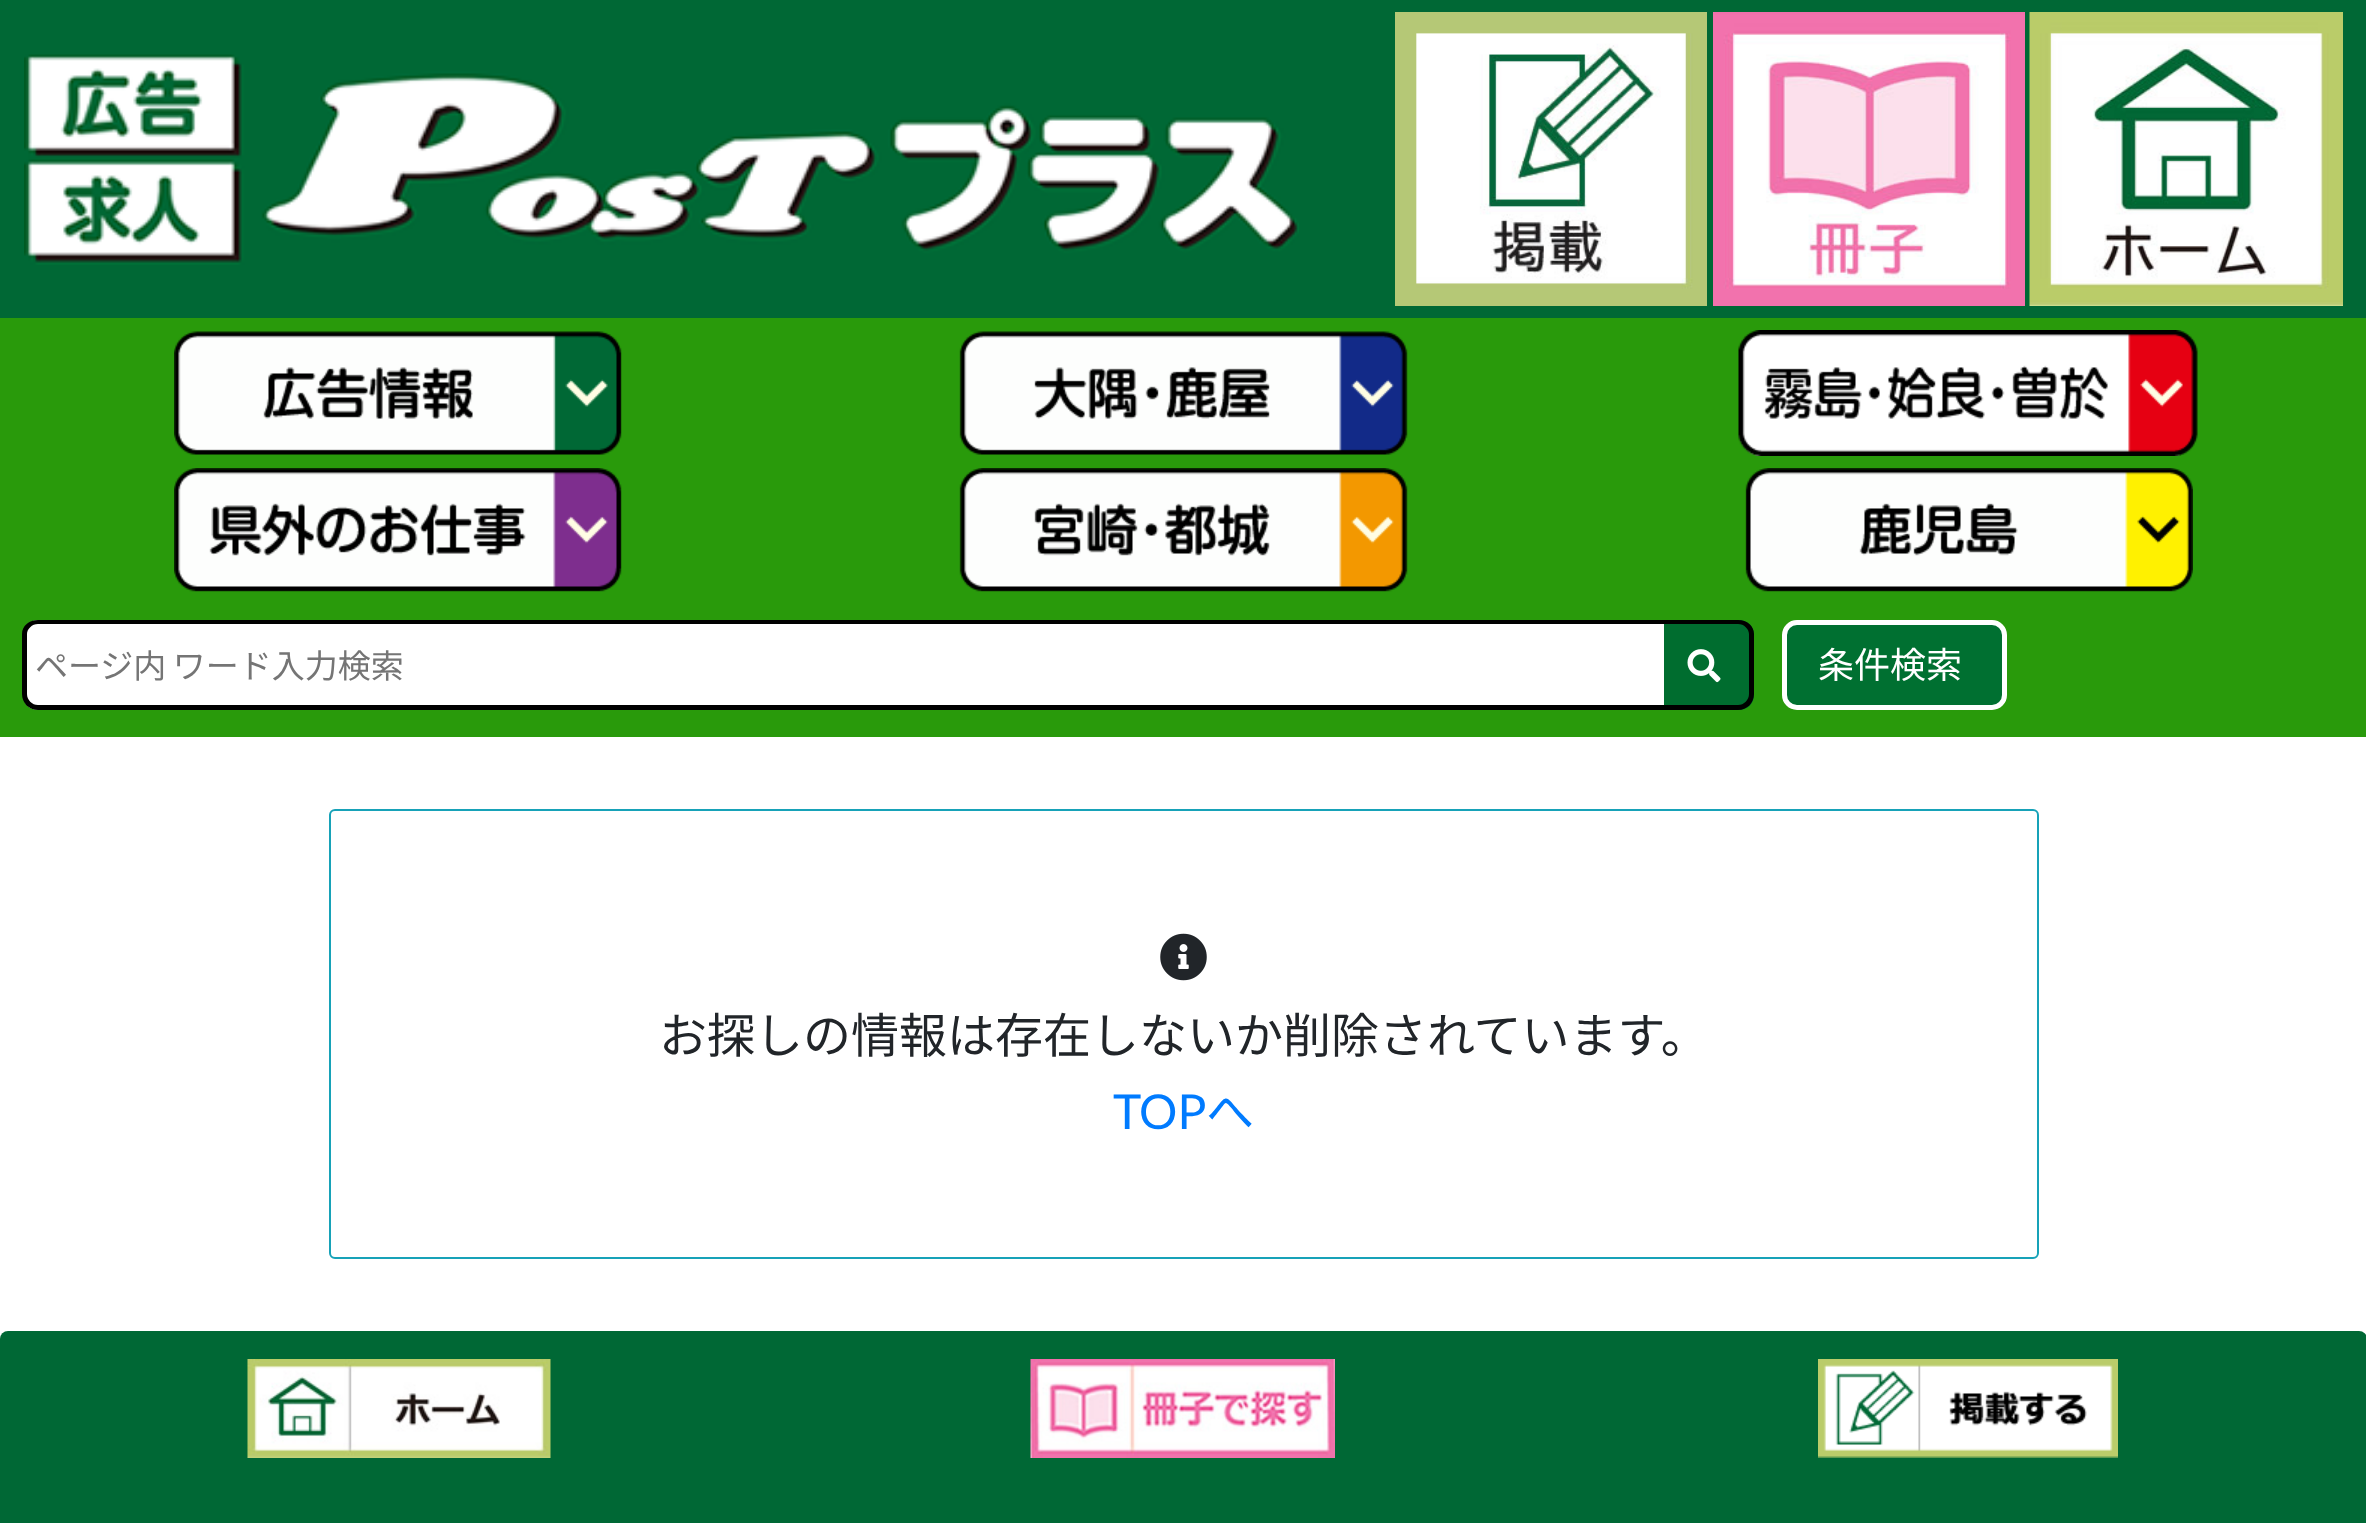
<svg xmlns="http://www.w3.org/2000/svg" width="2366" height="1523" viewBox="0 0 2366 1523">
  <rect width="100%" height="100%" fill="#fff"/>
  <path d="M0 0h2366v318H0z" fill="#006835"/>
  <image x="24" y="54" width="1275" height="211" href="img/1.png"/>
  <image x="1395" y="12" width="312" height="294" href="img/2.png"/>
  <image x="1713" y="12" width="312" height="294" href="img/3.png"/>
  <image x="2029" y="12" width="314" height="294" href="img/4.png"/>
  <path d="M0 318h2366v419H0z" fill="#299a0b"/>
  <image x="174" y="331" width="448" height="124" href="img/5.png"/>
  <image x="959" y="331" width="449" height="124" href="img/6.png"/>
  <image x="1738" y="330" width="460" height="126" href="img/7.png"/>
  <image x="174" y="468" width="448" height="124" href="img/8.png"/>
  <image x="959" y="468" width="449" height="124" href="img/9.png"/>
  <image x="1745" y="468" width="448" height="124" href="img/10.png"/>
  <path d="M38 620H1664V710H38C29.5 710 23 703.5 23 695V635C23 626.5 29.5 620 38 620Z" fill="#fff"/>
  <path d="M38 620H1664V710H38C29 710 22 703 22 694V634C22 626 29 620 38 620ZM38 624H1664V705H38C32 705 27 700 27 694V634C27 629 32 624 38 624Z" fill="#000" fill-rule="evenodd"/>
  <path d="M1664 620H1739C1747.5 620 1754 626.5 1754 635V695C1754 703.5 1747.5 710 1739 710H1664Z" fill="#006d2f"/>
  <path d="M1664 620H1738C1747 620 1754 626 1754 634V694C1754 703 1747 710 1738 710H1664ZM1664 624H1738C1744 624 1749 629 1749 634V694C1749 700 1744 705 1738 705H1664Z" fill="#000" fill-rule="evenodd"/>
  <image x="1687" y="649" width="34" height="34" href="img/11.png"/>
  <rect x="1784.5" y="622.5" width="220" height="85" rx="12.5" fill="#007031" stroke="#fff" stroke-width="5"/>
  <rect x="330" y="810" width="1708" height="448" rx="5" fill="none" stroke="#17a2b8" stroke-width="2"/>
  <image x="1160" y="933" width="47" height="48" href="img/12.png"/>
  <rect y="1331" width="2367" height="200" rx="8" fill="#006835"/>
  <image x="247" y="1359" width="304" height="99" href="img/13.png"/>
  <image x="1030" y="1359" width="305" height="99" href="img/14.png"/>
  <image x="1818" y="1359" width="300" height="99" href="img/15.png"/>
  <text x="35" y="678" word-spacing="-1" font-family="Noto Sans JP" font-size="33" fill="#757575">ページ内 ワード入力検索</text>
  <text x="1818" y="678" font-family="Noto Sans JP" font-size="36" fill="#fff">条件検索</text>
  <text x="659" y="1053" font-family="Noto Sans JP" font-size="48" fill="#212529">お探しの情報は存在しないか削除されています。</text>
  <text x="1113" y="1129" font-family="Lato" font-size="48" fill="#007bff">TOP</text>
  <text x="1206" y="1129" font-family="Noto Sans JP" font-size="48" fill="#007bff">へ</text>
</svg>
